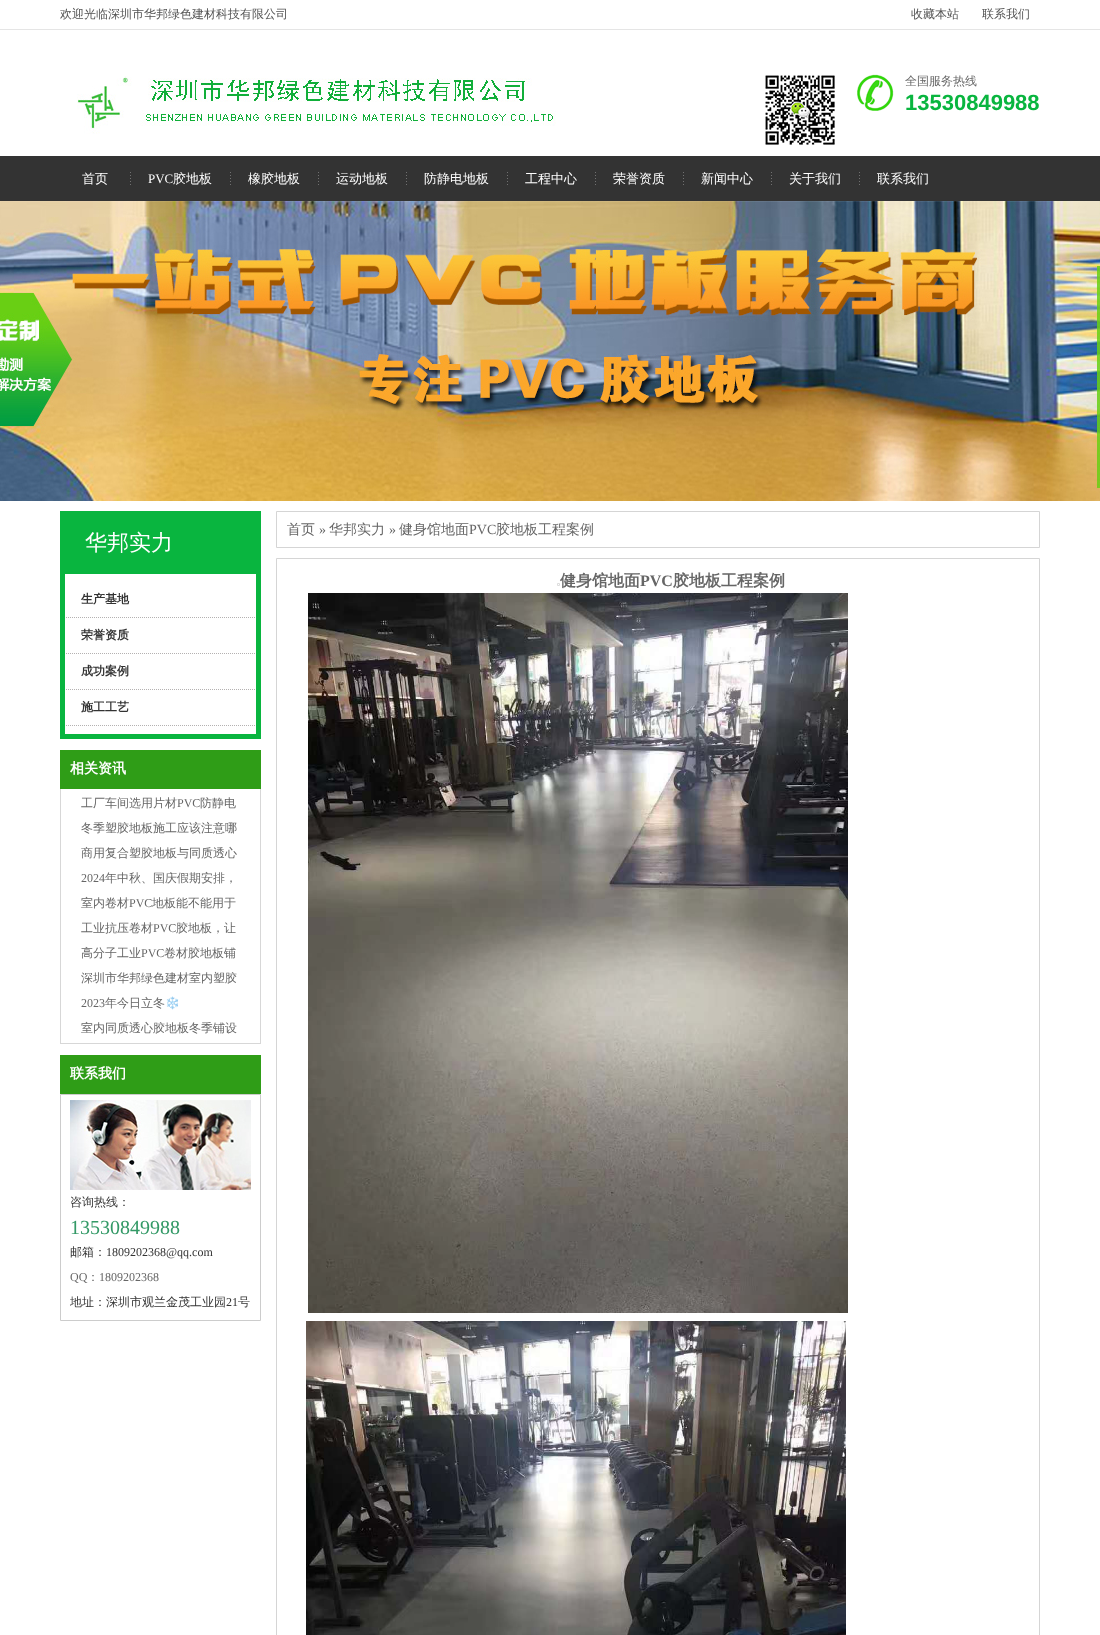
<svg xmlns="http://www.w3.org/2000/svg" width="1100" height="1635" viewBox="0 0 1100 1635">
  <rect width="100%" height="100%" fill="#fff"/>
  <path d="M0 29h1100v1H0z" fill="#e5e5e5"/>
  <image x="77" y="76" width="479" height="58" href="img/1.png"/>
  <image x="765" y="75" width="70" height="70" href="img/2.png"/>
  <image x="857" y="74" width="37" height="37" href="img/3.png"/>
  <path d="M0 156h1100v45H0z" fill="#333"/>
  <image x="130" y="172" width="1" height="13" href="img/4.png"/>
  <image x="230" y="172" width="1" height="13" href="img/4.png"/>
  <image x="318" y="172" width="1" height="13" href="img/4.png"/>
  <image x="406" y="172" width="1" height="13" href="img/4.png"/>
  <image x="507" y="172" width="1" height="13" href="img/4.png"/>
  <image x="595" y="172" width="1" height="13" href="img/4.png"/>
  <image x="683" y="172" width="1" height="13" href="img/4.png"/>
  <image x="771" y="172" width="1" height="13" href="img/4.png"/>
  <image x="859" y="172" width="1" height="13" href="img/4.png"/>
  <image x="0" y="201" width="1100" height="300" href="img/5.png"/>
  <path d="M60 511h201v63H60z" fill="#09b53f"/>
  <path d="M256 574h5v165H256z" fill="#09b53f"/>
  <path d="M60 734h201v5H60z" fill="#09b53f"/>
  <path d="M60 574h5v165H60z" fill="#09b53f"/>
  <path d="M66 617.5H255" fill="none" stroke="#b4b1b1" stroke-dasharray="1 1"/>
  <path d="M66 653.5H255" fill="none" stroke="#b4b1b1" stroke-dasharray="1 1"/>
  <path d="M66 689.5H255" fill="none" stroke="#b4b1b1" stroke-dasharray="1 1"/>
  <path d="M66 725.5H255" fill="none" stroke="#b4b1b1" stroke-dasharray="1 1"/>
  <path d="M60 750h201v39H60z" fill="#2f9d17"/>
  <path d="M260 789h1v255H260z" fill="#d7d7d7"/>
  <path d="M60 1043h201v1H60z" fill="#d7d7d7"/>
  <path d="M60 789h1v255H60z" fill="#d7d7d7"/>
  <path d="M60 1055h201v39H60z" fill="#2f9d17"/>
  <path d="M60.5 1094.5h200v226H60.5z" fill="none" stroke="#ccc"/>
  <image x="70" y="1100" width="181" height="90" href="img/6.png"/>
  <path d="M276.5 511.5h763v36H276.5z" fill="none" stroke="#d5d5d5"/>
  <path d="M276.5 558.5h763v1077H276.5z" fill="none" stroke="#d5d5d5"/>
  <path d="M557.5 583.5h2v2H557.5z" fill="none" stroke="#ddd"/>
  <image x="308" y="593" width="540" height="720" href="img/7.png"/>
  <image x="306" y="1321" width="540" height="314" href="img/8.png"/>
  <g font-family="WenQuanYi Zen Hei" font-size="12" font-weight="500" fill="#535353">
    <text x="60" y="18">欢迎光临深圳市华邦绿色建材科技有限公司</text>
    <text x="911" y="18">收藏本站</text>
    <text x="982" y="18">联系我们</text>
  </g>
  <text x="905" y="85" font-family="WenQuanYi Zen Hei" font-size="12" font-weight="500" fill="#666">全国服务热线</text>
  <text x="905" y="110" font-family="Liberation Sans" font-size="22" font-weight="bold" fill="#09b53f">13530849988</text>
  <text x="82" y="183" font-family="WenQuanYi Zen Hei" font-size="13" font-weight="500" fill="#fff">首页</text>
  <text x="148" y="183" font-family="Liberation Serif" font-size="13" fill="#fff">PVC</text>
  <g font-family="WenQuanYi Zen Hei" font-size="13" font-weight="500" fill="#fff">
    <text x="173" y="183">胶地板</text>
    <text x="248" y="183">橡胶地板</text>
    <text x="336" y="183">运动地板</text>
    <text x="424" y="183">防静电地板</text>
    <text x="525" y="183">工程中心</text>
    <text x="613" y="183">荣誉资质</text>
    <text x="701" y="183">新闻中心</text>
    <text x="789" y="183">关于我们</text>
    <text x="877" y="183">联系我们</text>
  </g>
  <text x="85" y="550" font-family="WenQuanYi Zen Hei" font-size="22" font-weight="500" fill="#fff">华邦实力</text>
  <g font-family="WenQuanYi Zen Hei" font-size="12" font-weight="bold" fill="#333">
    <text x="81" y="603">生产基地</text>
    <text x="81" y="639">荣誉资质</text>
    <text x="81" y="675">成功案例</text>
    <text x="81" y="711">施工工艺</text>
  </g>
  <text x="70" y="773" font-family="WenQuanYi Zen Hei" font-size="14" font-weight="bold" fill="#fff">相关资讯</text>
  <text x="81" y="807" font-family="WenQuanYi Zen Hei" font-size="12" font-weight="500" fill="#666">工厂车间选用片材</text>
  <text x="177" y="807" font-family="Liberation Serif" font-size="12" fill="#666">PVC</text>
  <g font-family="WenQuanYi Zen Hei" font-size="12" font-weight="500" fill="#666">
    <text x="200" y="807">防静电</text>
    <text x="81" y="832">冬季塑胶地板施工应该注意哪</text>
    <text x="81" y="857">商用复合塑胶地板与同质透心</text>
  </g>
  <text x="81" y="882" font-family="Liberation Serif" font-size="12" fill="#666">2024</text>
  <g font-family="WenQuanYi Zen Hei" font-size="12" font-weight="500" fill="#666">
    <text x="105" y="882">年中秋、国庆假期安排，</text>
    <text x="81" y="907">室内卷材</text>
  </g>
  <text x="129" y="907" font-family="Liberation Serif" font-size="12" fill="#666">PVC</text>
  <g font-family="WenQuanYi Zen Hei" font-size="12" font-weight="500" fill="#666">
    <text x="152" y="907">地板能不能用于</text>
    <text x="81" y="932">工业抗压卷材</text>
  </g>
  <text x="153" y="932" font-family="Liberation Serif" font-size="12" fill="#666">PVC</text>
  <g font-family="WenQuanYi Zen Hei" font-size="12" font-weight="500" fill="#666">
    <text x="176" y="932">胶地板，让</text>
    <text x="81" y="957">高分子工业</text>
  </g>
  <text x="141" y="957" font-family="Liberation Serif" font-size="12" fill="#666">PVC</text>
  <g font-family="WenQuanYi Zen Hei" font-size="12" font-weight="500" fill="#666">
    <text x="164" y="957">卷材胶地板铺</text>
    <text x="81" y="982">深圳市华邦绿色建材室内塑胶</text>
  </g>
  <text x="81" y="1007" font-family="Liberation Serif" font-size="12" fill="#666">2023</text>
  <text x="105" y="1007" font-family="WenQuanYi Zen Hei" font-size="12" font-weight="500" fill="#666">年今日立冬</text>
  <text x="165" y="1007" font-family="Noto Color Emoji" font-size="12" fill="#666">❄️</text>
  <text x="81" y="1032" font-family="WenQuanYi Zen Hei" font-size="12" font-weight="500" fill="#666">室内同质透心胶地板冬季铺设</text>
  <text x="70" y="1078" font-family="WenQuanYi Zen Hei" font-size="14" font-weight="bold" fill="#fff">联系我们</text>
  <text x="70" y="1206" font-family="WenQuanYi Zen Hei" font-size="12" font-weight="500" fill="#333">咨询热线：</text>
  <text x="70" y="1234" font-family="Liberation Serif" font-size="20" fill="#396">13530849988</text>
  <text x="70" y="1256" font-family="WenQuanYi Zen Hei" font-size="12" font-weight="500" fill="#333">邮箱：</text>
  <text x="106" y="1256" font-family="Liberation Serif" font-size="12" fill="#333">1809202368@qq.com</text>
  <text x="70" y="1281" font-family="Liberation Serif" font-size="12" fill="#666">QQ</text>
  <text x="87" y="1281" font-family="WenQuanYi Zen Hei" font-size="12" font-weight="500" fill="#666">：</text>
  <text x="99" y="1281" font-family="Liberation Serif" font-size="12" fill="#666">1809202368</text>
  <text x="70" y="1306" font-family="WenQuanYi Zen Hei" font-size="12" font-weight="500" fill="#333">地址：深圳市观兰金茂工业园</text>
  <text x="226" y="1306" font-family="Liberation Serif" font-size="12" fill="#333">21</text>
  <text x="238" y="1306" font-family="WenQuanYi Zen Hei" font-size="12" font-weight="500" fill="#333">号</text>
  <text x="287" y="534" font-family="WenQuanYi Zen Hei" font-size="14" font-weight="500" fill="#666">首页</text>
  <text x="319" y="534" font-family="Liberation Serif" font-size="14" fill="#666">»</text>
  <text x="329" y="534" font-family="WenQuanYi Zen Hei" font-size="14" font-weight="500" fill="#666">华邦实力</text>
  <text x="389" y="534" font-family="Liberation Serif" font-size="14" fill="#666">»</text>
  <text x="399" y="534" font-family="WenQuanYi Zen Hei" font-size="14" font-weight="500" fill="#666">健身馆地面</text>
  <text x="469" y="534" font-family="Liberation Serif" font-size="14" fill="#666">PVC</text>
  <text x="496" y="534" font-family="WenQuanYi Zen Hei" font-size="14" font-weight="500" fill="#666">胶地板工程案例</text>
  <text x="560" y="586" font-family="WenQuanYi Zen Hei" font-size="16" font-weight="bold" fill="#666">健身馆地面</text>
  <text x="640" y="586" font-family="Liberation Serif" font-size="16" font-weight="bold" fill="#666">PVC</text>
  <text x="673" y="586" font-family="WenQuanYi Zen Hei" font-size="16" font-weight="bold" fill="#666">胶地板工程案例</text>
</svg>
